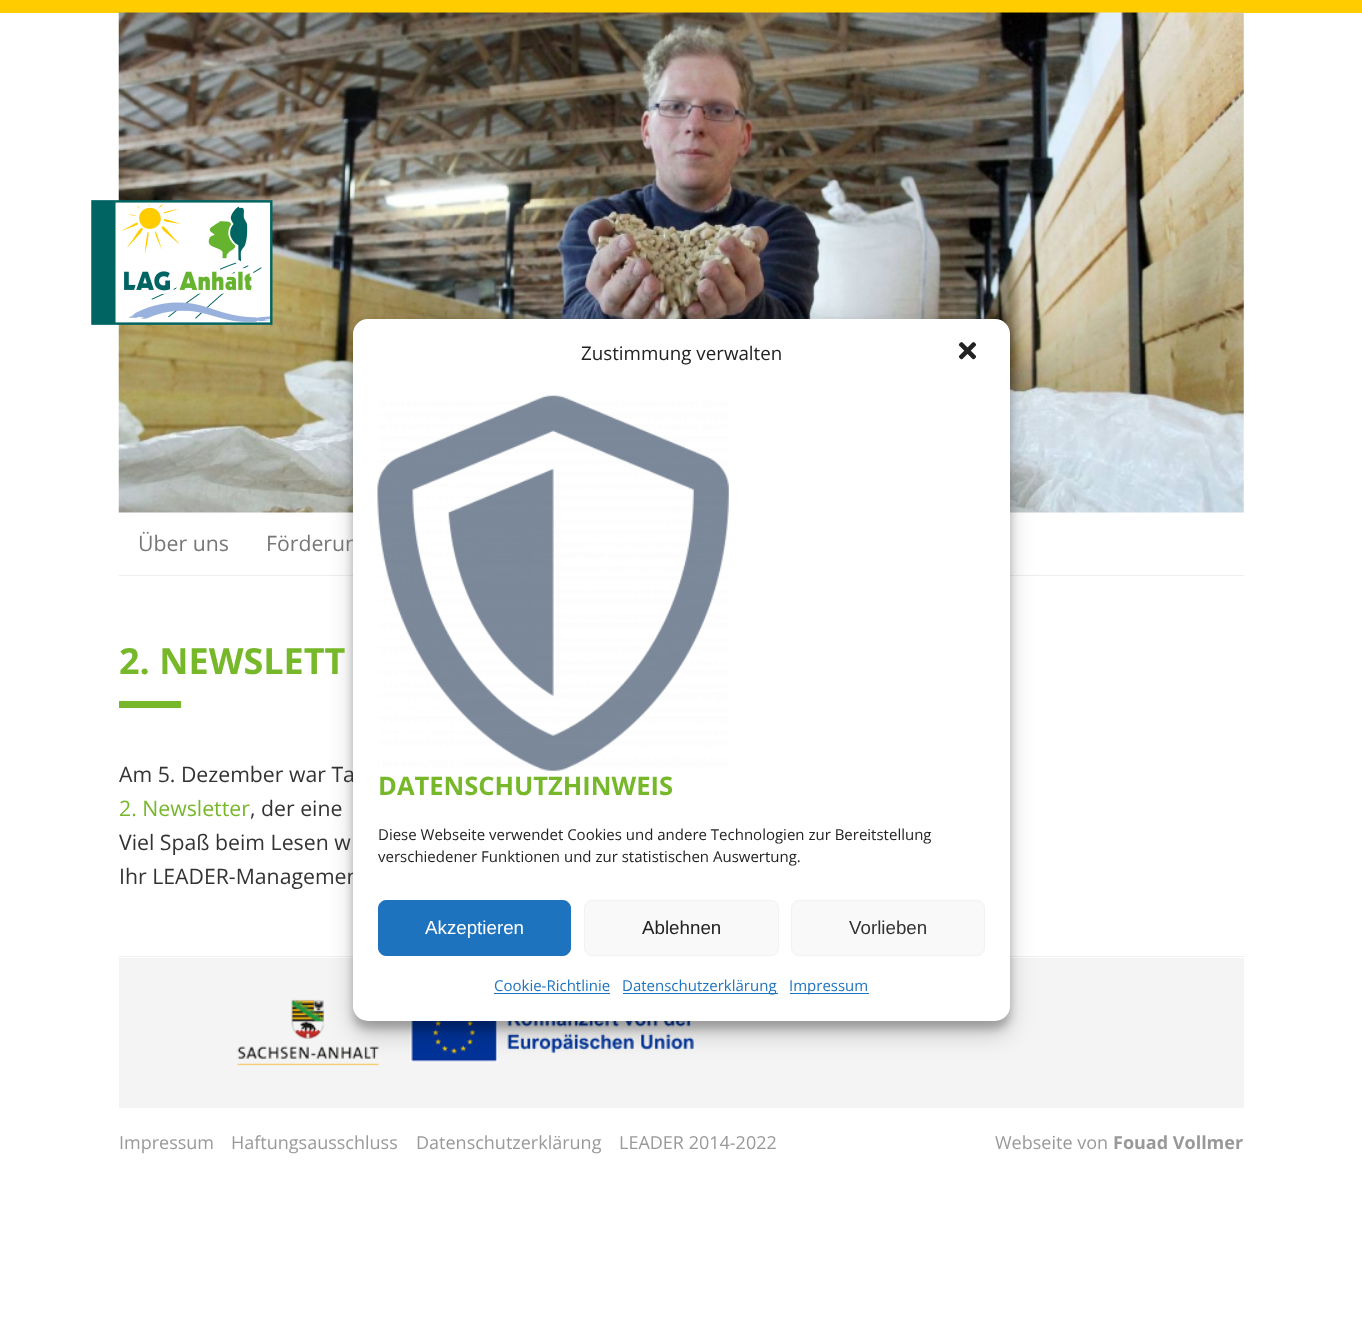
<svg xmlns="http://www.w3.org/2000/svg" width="1362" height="1338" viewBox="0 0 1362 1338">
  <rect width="100%" height="100%" fill="#fff"/>
  <path d="M0 0h1362v13H0z" fill="#fc0"/>
  <image x="118" y="12" width="1126" height="501" href="img/3.png"/>
  <path d="M119 575h1125v1H119z" fill="#eee"/>
  <path d="M119 956h1125v1H119z" fill="#eee"/>
  <path d="M119 958h1125v150H119z" fill="#f4f4f4"/>
  <image x="237" y="999" width="457" height="67" href="img/5.png"/>
  <rect x="353" y="326" width="657" height="703" rx="15" fill="#0000003b" filter="blur(4px)"/>
  <rect x="353" y="331" width="657" height="703" rx="15" fill="#00000030" filter="blur(12.5px)"/>
  <image x="91" y="200" width="182" height="125" href="img/4.png"/>
  <path d="M119 701h62v7H119z" fill="#76b82a"/>
  <g font-family="Open Sans" font-size="21.25" fill="#777">
    <text x="138" y="551">Über uns</text>
    <text x="266" y="551">Förderun</text>
  </g>
  <text x="119" y="674" font-family="Open Sans" font-size="36" font-weight="bold" fill="#76b82a">2. NEWSLETT</text>
  <text x="119" y="782" font-family="Open Sans" font-size="21.25" fill="#333">Am 5. Dezember war Ta</text>
  <text x="119" y="816" font-family="Open Sans" font-size="21.25" fill="#76b82a">2. Newsletter</text>
  <g font-family="Open Sans" font-size="21.25" fill="#333">
    <text x="250" y="816">, der eine</text>
    <text x="119" y="850">Viel Spaß beim Lesen w</text>
    <text x="119" y="884">Ihr LEADER-Managemen</text>
  </g>
  <rect x="353" y="319" width="657" height="702" rx="15" fill="#fff"/>
  <text x="378" y="795" font-family="Open Sans" font-size="25.5" font-weight="bold" fill="#76b82a">DATENSCHUTZHINWEIS</text>
  <g font-family="Open Sans" font-size="15" fill="#222">
    <text x="378" y="862">verschiedener Funktionen und zur statistischen Auswertung.</text>
    <text x="378" y="840">Diese Webseite verwendet Cookies und andere Technologien zur Bereitstellung</text>
  </g>
  <image x="377" y="395" width="352" height="376" href="img/2.png"/>
  <image x="958" y="342" width="19" height="18" href="img/1.png"/>
  <path d="M790 993h79v1H790z" fill="#1e73be"/>
  <text x="789" y="991" font-family="Open Sans" font-size="15" fill="#1e73be">Impressum</text>
  <path d="M623 993h155v1H623z" fill="#1e73be"/>
  <g font-family="Open Sans" font-size="15" fill="#1e73be">
    <text x="622" y="991">Datenschutzerklärung</text>
    <text x="494" y="991">Cookie-Richtlinie</text>
  </g>
  <path d="M494 993h116v1H494z" fill="#1e73be"/>
  <rect x="791.5" y="900.5" width="193" height="55" rx="7.5" fill="#f9f9f9" stroke="#f2f2f2"/>
  <text x="849" y="934" font-family="Liberation Sans" font-size="18.75" fill="#333">Vorlieben</text>
  <rect x="584.5" y="900.5" width="194" height="55" rx="7.5" fill="#f9f9f9" stroke="#f2f2f2"/>
  <text x="642" y="934" font-family="Liberation Sans" font-size="18.75" fill="#222">Ablehnen</text>
  <rect x="378.5" y="900.5" width="192" height="55" rx="7.5" fill="#1e73be" stroke="#1e73be"/>
  <text x="425" y="934" font-family="Liberation Sans" font-size="18.75" fill="#fff">Akzeptieren</text>
  <text x="581" y="360" font-family="Open Sans" font-size="18.75" fill="#222">Zustimmung verwalten</text>
  <g font-family="Open Sans" font-size="18" fill="#999">
    <text x="119" y="1149">Impressum</text>
    <text x="231" y="1149">Haftungsausschluss</text>
    <text x="416" y="1149">Datenschutzerklärung</text>
    <text x="619" y="1149">LEADER 2014-2022</text>
    <text x="995" y="1149">Webseite von</text>
  </g>
  <text x="1113" y="1149" font-family="Open Sans" font-size="18" font-weight="bold" fill="#999">Fouad Vollmer</text>
</svg>
